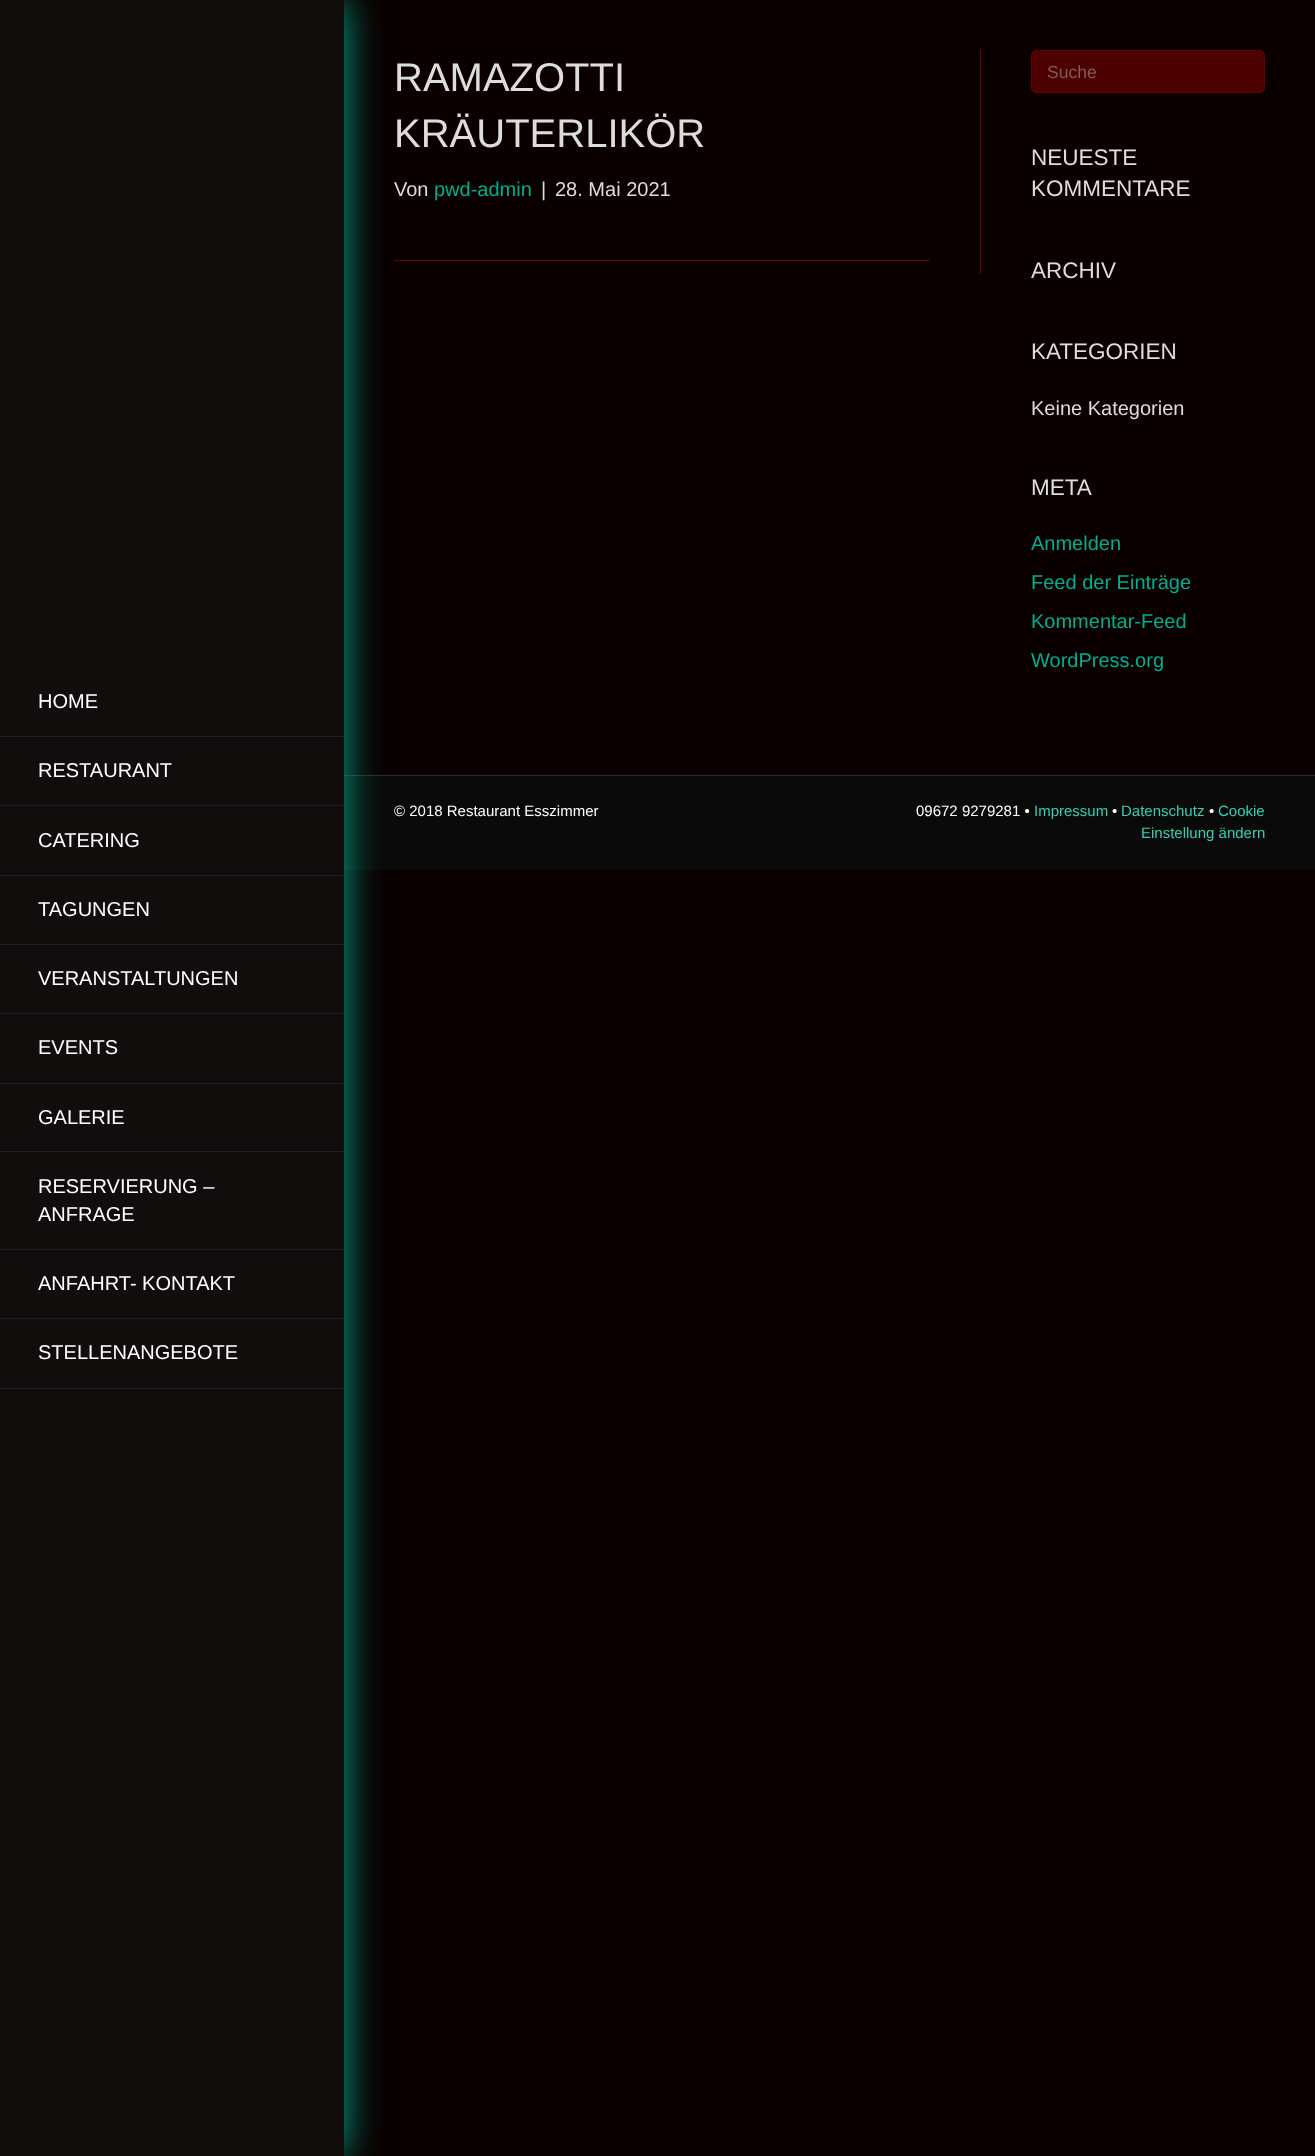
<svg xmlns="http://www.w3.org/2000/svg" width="1315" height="2156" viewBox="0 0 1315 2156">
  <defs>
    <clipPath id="clip1"><path d="M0 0H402V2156H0ZM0 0H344V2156H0Z" clip-rule="evenodd"/></clipPath>
  </defs>
  <rect width="100%" height="100%" fill="#0a0000"/>
  <path d="M980 50h1v224H980z" fill="#6b0000"/>
  <path d="M394 260h536v1H394z" fill="#6b0000"/>
  <rect x="1031.5" y="50.5" width="233" height="42" rx="4.5" fill="#4c0000" stroke="#6b0000"/>
  <path d="M344 776h971v94H344z" fill="#0a0a0a"/>
  <path d="M344 775h971v1H344z" fill="#2b2b2b"/>
  <g clip-path="url(#clip1)">
    <path d="M0 0h344v2156H0z" fill="#00ae90" filter="blur(19px)"/>
  </g>
  <path d="M0 0h344v2156H0z" fill="#19191980"/>
  <path d="M0 736h344v1H0z" fill="#1f1f1f"/>
  <path d="M0 805h344v1H0z" fill="#1f1f1f"/>
  <path d="M0 875h344v1H0z" fill="#1f1f1f"/>
  <path d="M0 944h344v1H0z" fill="#1f1f1f"/>
  <path d="M0 1013h344v1H0z" fill="#1f1f1f"/>
  <path d="M0 1083h344v1H0z" fill="#1f1f1f"/>
  <path d="M0 1151h344v1H0z" fill="#1f1f1f"/>
  <path d="M0 1249h344v1H0z" fill="#1f1f1f"/>
  <path d="M0 1318h344v1H0z" fill="#1f1f1f"/>
  <path d="M0 1388h344v1H0z" fill="#1f1f1f"/>
  <g font-family="Liberation Sans" font-size="40" fill="#ddd">
    <text x="394" y="91">RAMAZOTTI</text>
    <text x="394" y="147">KRÄUTERLIKÖR</text>
  </g>
  <text x="394" y="196" font-family="Liberation Sans" font-size="20" fill="#ddd">Von</text>
  <text x="434" y="196" font-family="Liberation Sans" font-size="20" fill="#00ae90">pwd-admin</text>
  <g font-family="Liberation Sans" font-size="20" fill="#ddd">
    <text x="541" y="196">|</text>
    <text x="555" y="196">28. Mai 2021</text>
  </g>
  <text x="1047" y="78" font-family="Liberation Sans" font-size="17.5" fill="#865858">Suche</text>
  <g font-family="Liberation Sans" font-size="22.5" fill="#ddd">
    <text x="1031" y="165">NEUESTE</text>
    <text x="1031" y="196">KOMMENTARE</text>
    <text x="1031" y="278">ARCHIV</text>
    <text x="1031" y="359">KATEGORIEN</text>
  </g>
  <text x="1031" y="415" font-family="Liberation Sans" font-size="20" fill="#ddd">Keine Kategorien</text>
  <text x="1031" y="495" font-family="Liberation Sans" font-size="22.5" fill="#ddd">META</text>
  <g font-family="Liberation Sans" font-size="20" fill="#00ae90">
    <text x="1031" y="550">Anmelden</text>
    <text x="1031" y="589">Feed der Einträge</text>
    <text x="1031" y="628">Kommentar-Feed</text>
    <text x="1031" y="667">WordPress.org</text>
  </g>
  <g font-family="Liberation Sans" font-size="20" fill="#fff">
    <text x="38" y="708">HOME</text>
    <text x="38" y="777">RESTAURANT</text>
    <text x="38" y="847">CATERING</text>
    <text x="38" y="916">TAGUNGEN</text>
    <text x="38" y="985">VERANSTALTUNGEN</text>
    <text x="38" y="1054">EVENTS</text>
    <text x="38" y="1124">GALERIE</text>
    <text x="38" y="1193">RESERVIERUNG –</text>
    <text x="38" y="1221">ANFRAGE</text>
    <text x="38" y="1290">ANFAHRT- KONTAKT</text>
    <text x="38" y="1359">STELLENANGEBOTE</text>
  </g>
  <g font-family="Liberation Sans" font-size="15" fill="#fff">
    <text x="394" y="816">© 2018 Restaurant Esszimmer</text>
    <text x="916" y="816">09672 9279281 •</text>
  </g>
  <text x="1034" y="816" font-family="Liberation Sans" font-size="15" fill="#37ceb2">Impressum</text>
  <text x="1112" y="816" font-family="Liberation Sans" font-size="15" fill="#fff">•</text>
  <text x="1121" y="816" font-family="Liberation Sans" font-size="15" fill="#37ceb2">Datenschutz</text>
  <text x="1209" y="816" font-family="Liberation Sans" font-size="15" fill="#fff">•</text>
  <g font-family="Liberation Sans" font-size="15" fill="#37ceb2">
    <text x="1218" y="816">Cookie</text>
    <text x="1141" y="838">Einstellung ändern</text>
  </g>
</svg>
